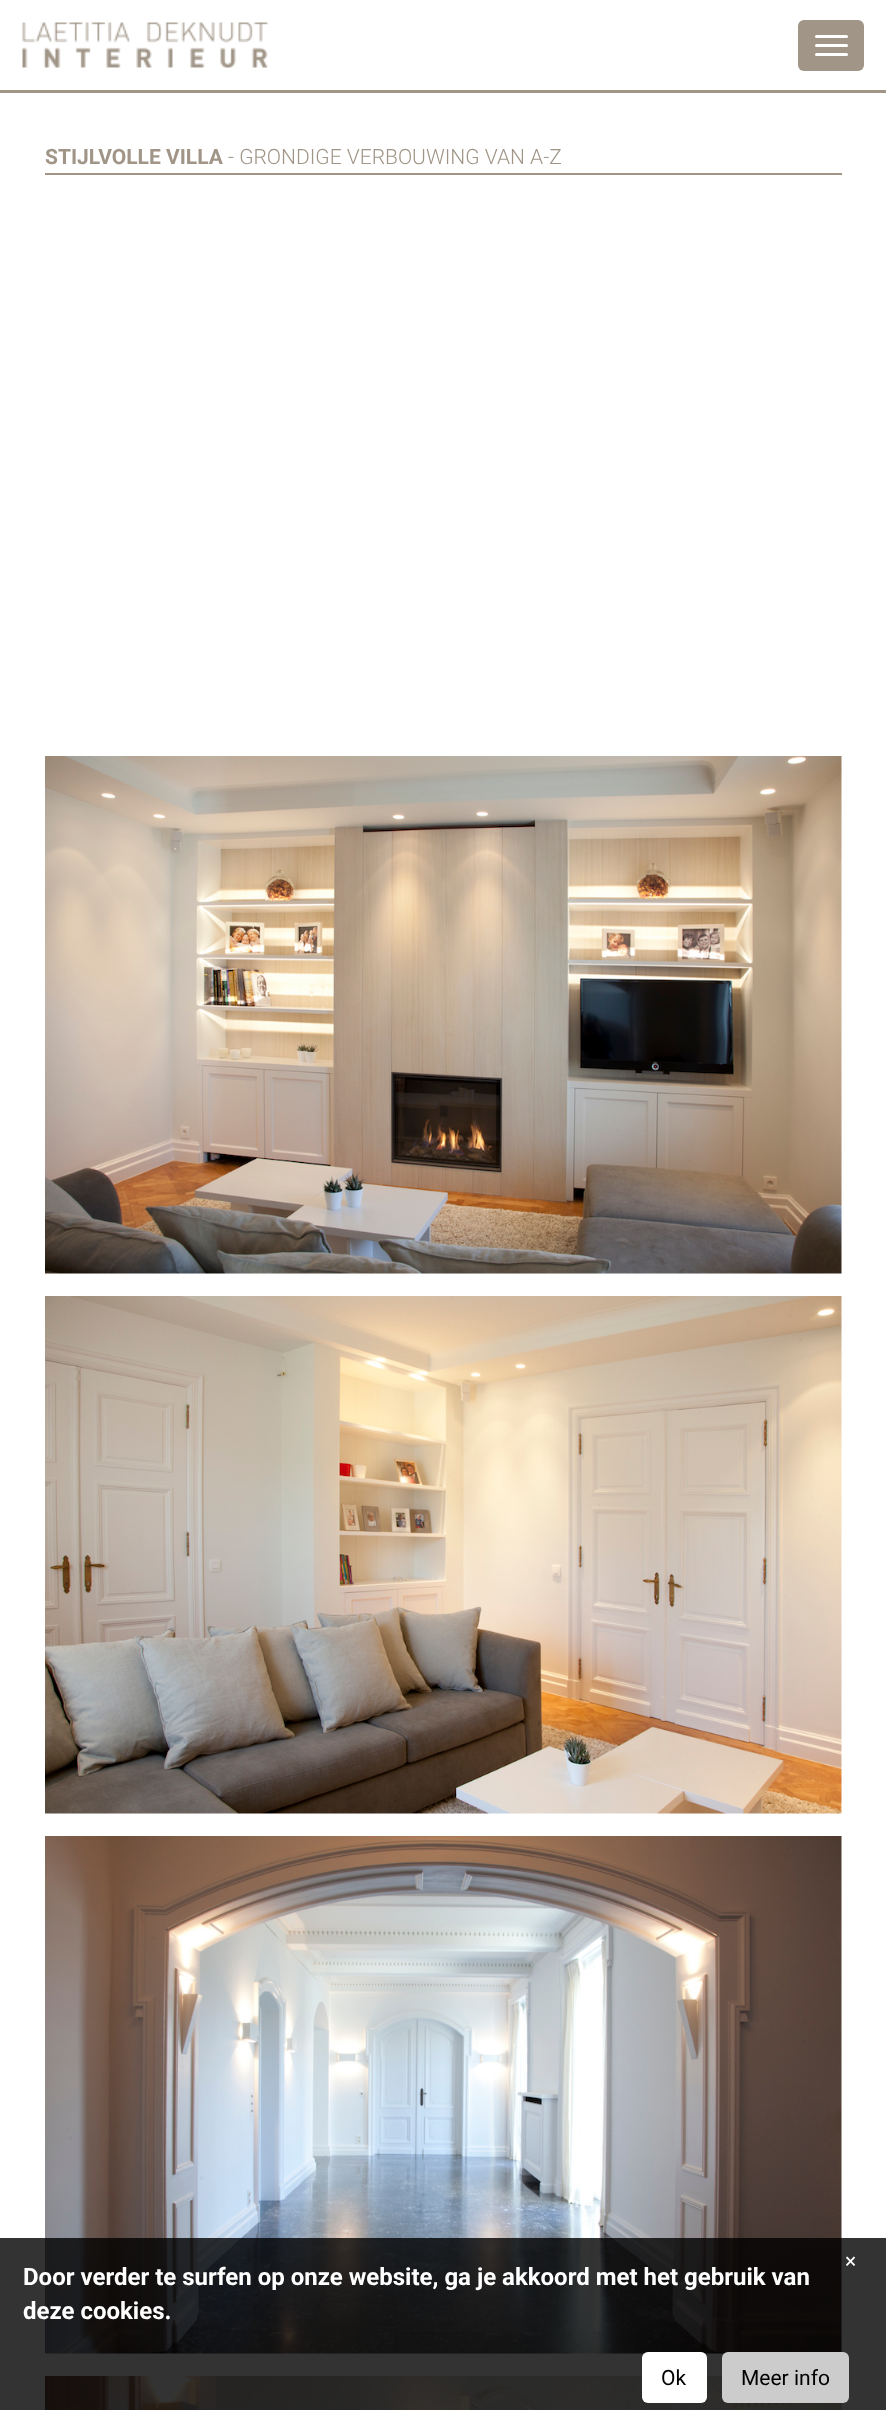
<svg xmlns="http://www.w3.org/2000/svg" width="886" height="2410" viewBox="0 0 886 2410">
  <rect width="100%" height="100%" fill="#fff"/>
  <path d="M0 90h886v3H0z" fill="#a09587"/>
  <image x="22" y="22" width="247" height="46" href="img/1.png"/>
  <rect x="798" y="20" width="66" height="51" rx="6" fill="#a09587"/>
  <rect x="815" y="35" width="33" height="3" rx="1.5" fill="#fff"/>
  <rect x="815" y="44" width="33" height="3" rx="1.5" fill="#fff"/>
  <rect x="815" y="53" width="33" height="3" rx="1.5" fill="#fff"/>
  <path d="M45 173h797v2H45z" fill="#a09587"/>
  <image x="45" y="756" width="797" height="518" href="img/2.png"/>
  <image x="45" y="1296" width="797" height="518" href="img/3.png"/>
  <image x="45" y="1836" width="797" height="518" href="img/4.png"/>
  <image x="45" y="2376" width="797" height="34" href="img/5.png"/>
  <path d="M0 2238h886v172H0z" fill="#000000cc"/>
  <rect x="642" y="2352" width="65" height="51" rx="6" fill="#fff"/>
  <rect x="722" y="2352" width="127" height="51" rx="6" fill="#ccc"/>
  <text x="45" y="164" font-family="Roboto" font-size="21" font-weight="bold" fill="#a09587">STIJLVOLLE VILLA</text>
  <text x="228" y="164" font-family="Roboto" font-size="21" font-weight="300" fill="#a09587">- GRONDIGE VERBOUWING VAN A-Z</text>
  <text x="845" y="2268" font-family="Roboto" font-size="21" fill="#fff">×</text>
  <g font-family="Roboto" font-size="24" font-weight="bold" fill="#fff">
    <text x="23" y="2285">Door verder te surfen op onze website, ga je akkoord met het gebruik van</text>
    <text x="23" y="2319">deze cookies.</text>
  </g>
  <g font-family="Roboto" font-size="21" fill="#000">
    <text x="661" y="2385">Ok</text>
    <text x="741" y="2385">Meer info</text>
  </g>
</svg>
